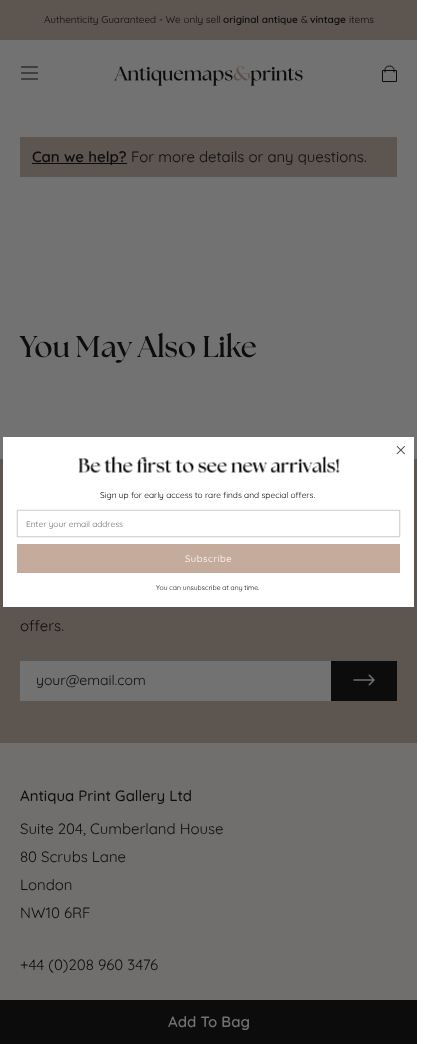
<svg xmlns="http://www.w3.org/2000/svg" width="432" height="1044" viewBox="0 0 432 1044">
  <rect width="100%" height="100%" fill="#fff"/>
  <path d="M0 40h417v419H0z" fill="#727272"/>
  <path d="M0 0h417v40H0z" fill="#5c5550"/>
  <path d="M21.5 67H37.5M21.5 73H37.5M21.5 79H37.5" fill="none" stroke="#0c0c0c" stroke-linecap="round"/>
  <image x="114" y="66" width="189" height="20" href="img/1.png"/>
  <image x="382" y="65" width="15" height="17" href="img/2.png"/>
  <path d="M20 137h377v40H20z" fill="#5c5550"/>
  <path d="M32 163h95v1H32z" fill="#0c0c0c"/>
  <path d="M0 1000h417v44H0z" fill="#0c0c0c"/>
  <path d="M0 459h417v284H0z" fill="#5c5550"/>
  <path d="M3 437h411v170H3z" fill="#fff"/>
  <image x="396" y="446" width="9" height="9" href="img/3.png"/>
  <image x="78" y="456" width="262" height="17" href="img/4.png"/>
  <path d="M17.25 510.25h382.5v26.5H17.25z" fill="none" stroke="#949596" stroke-width="0.5"/>
  <path d="M17 544h383v29H17z" fill="#c5ab9b"/>
  <path d="M0 743h417v257H0z" fill="#706f6e"/>
  <path d="M20 661h311v40H20z" fill="#727272"/>
  <path d="M331 661h66v40H331z" fill="#0c0c0c"/>
  <image x="353" y="674" width="22" height="12" href="img/5.png"/>
  <text x="44" y="23" font-family="Quicksand" font-size="10" fill="#0c0c0c">Authenticity Guaranteed - We only sell</text>
  <text x="223" y="23" font-family="Quicksand" font-size="10" font-weight="600" fill="#0c0c0c">original antique</text>
  <text x="301" y="23" font-family="Quicksand" font-size="10" fill="#0c0c0c">&amp;</text>
  <text x="310" y="23" font-family="Quicksand" font-size="10" font-weight="600" fill="#0c0c0c">vintage</text>
  <text x="349" y="23" font-family="Quicksand" font-size="10" fill="#0c0c0c">items</text>
  <text x="32" y="162" font-family="Quicksand" font-size="15" font-weight="600" fill="#0c0c0c">Can we help?</text>
  <text x="131" y="162" font-family="Quicksand" font-size="15" fill="#0c0c0c">For more details or any questions.</text>
  <text x="168" y="1027" font-family="Quicksand" font-size="15" font-weight="600" fill="#727272">Add To Bag</text>
  <text x="20" y="357" font-family="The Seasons" font-size="30" font-weight="bold" fill="#0c0c0c">You May Also Like</text>
  <text x="100" y="498" font-family="Quicksand" font-size="8.4" fill="#000">Sign up for early access to rare finds and special offers.</text>
  <text x="26" y="527" font-family="Quicksand" font-size="8.4" fill="#727272">Enter your email address</text>
  <text x="185" y="562" font-family="Quicksand" font-size="9.5" letter-spacing="0.5" fill="#fff">Subscribe</text>
  <text x="156" y="590" font-family="Quicksand" font-size="6.8" fill="#000">You can unsubscribe at any time.</text>
  <text x="20" y="631" font-family="Quicksand" font-size="15" fill="#0c0c0c">offers.</text>
  <text x="36" y="685" font-family="Quicksand" font-size="14" fill="#0c0c0c">your@email.com</text>
  <text x="20" y="801" font-family="Quicksand" font-size="15" font-weight="500" fill="#0c0c0c">Antiqua Print Gallery Ltd</text>
  <g font-family="Quicksand" font-size="15" fill="#0c0c0c">
    <text x="20" y="834">Suite 204, Cumberland House</text>
    <text x="20" y="862">80 Scrubs Lane</text>
    <text x="20" y="890">London</text>
    <text x="20" y="918">NW10 6RF</text>
    <text x="20" y="970">+44 (0)208 960 3476</text>
  </g>
</svg>
